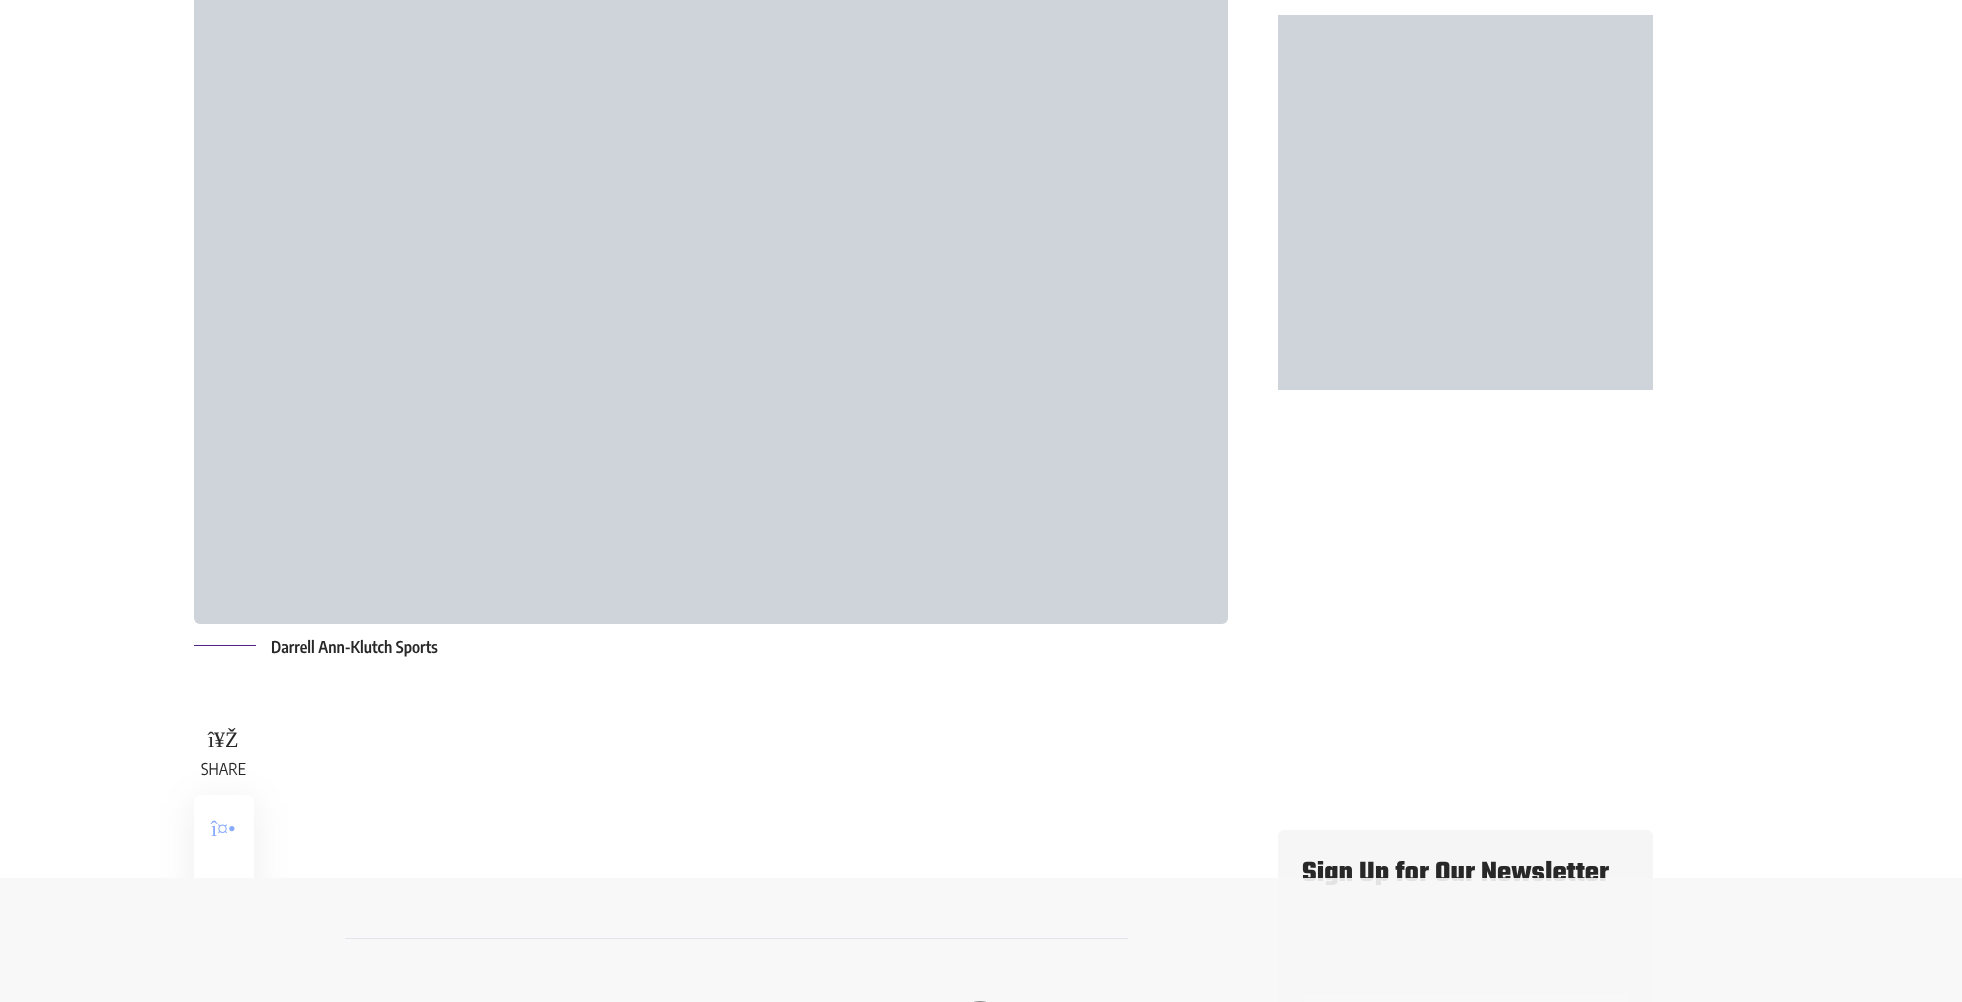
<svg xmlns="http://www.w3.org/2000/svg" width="1962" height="1002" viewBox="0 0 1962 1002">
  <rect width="100%" height="100%" fill="#fff"/>
  <rect x="194" y="-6" width="1034" height="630" rx="6" fill="#ced4da"/>
  <path d="M194 645h62v1H194z" fill="#542583"/>
  <rect x="194" y="801" width="60" height="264" rx="6" fill="#00000012" filter="blur(19px)"/>
  <rect x="194" y="795" width="60" height="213" rx="6" fill="#fff"/>
  <path d="M345 938h783v1H345z" fill="#542583"/>
  <path d="M1278 15h375v375H1278z" fill="#ced4da"/>
  <rect x="1278" y="830" width="375" height="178" rx="6" fill="#f6f6f6"/>
  <rect x="1303" y="993" width="325" height="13" rx="4" fill="#fff"/>
  <path d="M1308 994H1625H1627C1626 994 1625 993 1624 993H1307C1305 993 1303 995 1303 997V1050C1303 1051 1304 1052 1304 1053V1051V998C1304 995 1305 994 1308 994Z" fill="#e2e2e2"/>
  <text x="271" y="653" font-family="Encode Sans Condensed" font-size="16.25" font-weight="600" fill="#282828">Darrell Ann-Klutch Sports</text>
  <text x="208" y="747" font-family="Liberation Serif" font-size="22" fill="#282828">î¥Ž</text>
  <text x="201" y="775" font-family="Encode Sans Condensed" font-size="16.25" fill="#282828">SHARE</text>
  <text x="211" y="836" font-family="Liberation Serif" font-size="22" fill="#89abfc">î¤•</text>
  <text x="1302" y="881" font-family="Teko" font-size="30" font-weight="bold" fill="#282828">Sign Up for Our Newsletter</text>
  <path d="M0 878h1962v124H0z" fill="#f7f7f7e6"/>
  <rect x="966.5" y="1001.5" width="27" height="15" rx="13.5" fill="none" stroke="#888"/>
</svg>
